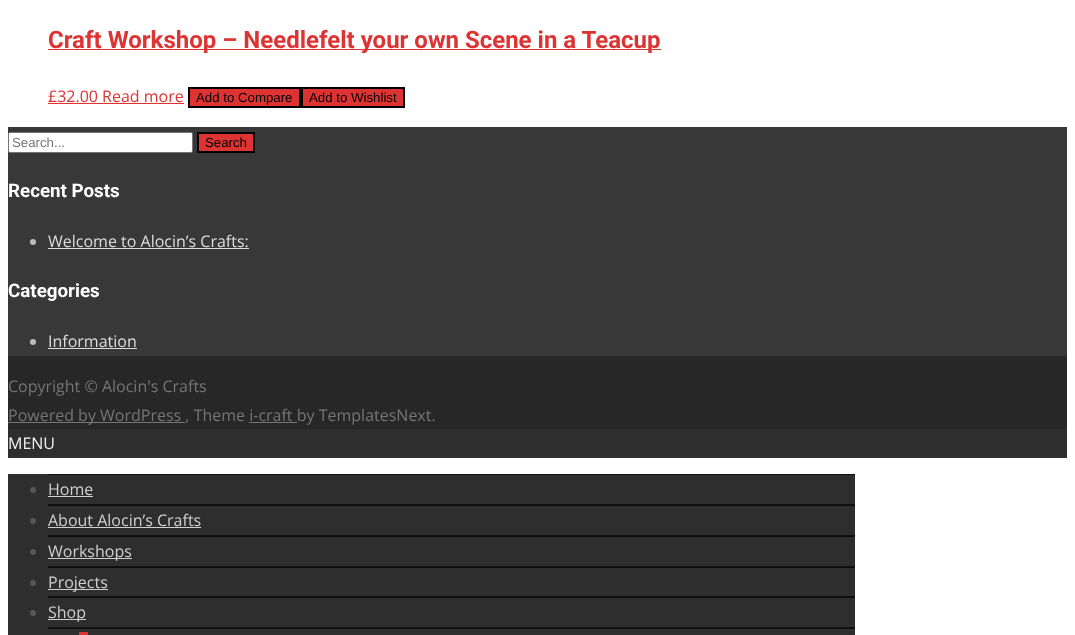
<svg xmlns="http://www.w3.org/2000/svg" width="1075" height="635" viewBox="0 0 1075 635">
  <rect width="100%" height="100%" fill="#fff"/>
  <path d="M48 49h613v1H48z" fill="#d33"/>
  <path d="M48 103h136v1H48z" fill="#d33"/>
  <path d="M189 88h111v19H189z" fill="#d33" stroke="#000" stroke-width="2"/>
  <path d="M302 88h102v19H302z" fill="#d33" stroke="#000" stroke-width="2"/>
  <path d="M8 356h1059v73H8z" fill="#272727"/>
  <path d="M8 127h1059v229H8z" fill="#383838"/>
  <rect x="8.5" y="132.5" width="184" height="20" rx="1.5" fill="#fff" stroke="#767676"/>
  <path d="M198 133h56v19H198z" fill="#d33" stroke="#000" stroke-width="2"/>
  <circle cx="33" cy="242" r="3" fill="#bbb"/>
  <path d="M48 248h201v1H48z" fill="#ddd"/>
  <circle cx="33" cy="342" r="3" fill="#bbb"/>
  <path d="M48 348h89v1H48z" fill="#ddd"/>
  <path d="M8 422h177v1H8z" fill="#777"/>
  <path d="M8 429h1059v29H8z" fill="#2e2e2e"/>
  <path d="M8 474h847v161H8z" fill="#2e2e2e"/>
  <path d="M48 474h807v1H48z" fill="#0d0d0d"/>
  <path d="M48 504h807v1H48z" fill="#131212"/>
  <circle cx="33" cy="490" r="3" fill="#575757"/>
  <path d="M48 496h45v1H48z" fill="#cfcfcf"/>
  <path d="M48 505h807v1H48z" fill="#0d0d0d"/>
  <path d="M48 535h807v1H48z" fill="#131212"/>
  <circle cx="33" cy="521" r="3" fill="#575757"/>
  <path d="M48 527h153v1H48z" fill="#cfcfcf"/>
  <path d="M48 536h807v1H48z" fill="#0d0d0d"/>
  <path d="M48 566h807v1H48z" fill="#131212"/>
  <circle cx="33" cy="552" r="3" fill="#575757"/>
  <path d="M48 558h84v1H48z" fill="#cfcfcf"/>
  <path d="M48 567h807v1H48z" fill="#0d0d0d"/>
  <path d="M48 596h807v1H48z" fill="#131212"/>
  <circle cx="33" cy="583" r="3" fill="#575757"/>
  <path d="M48 589h60v1H48z" fill="#cfcfcf"/>
  <path d="M48 597h807v1H48z" fill="#0d0d0d"/>
  <path d="M48 627h807v1H48z" fill="#131212"/>
  <circle cx="33" cy="613" r="3" fill="#575757"/>
  <path d="M48 619h38v1H48z" fill="#cfcfcf"/>
  <path d="M48 628h807v1H48z" fill="#0d0d0d"/>
  <path d="M79 632h9v3H79z" fill="#d33"/>
  <text x="48" y="48" font-family="Roboto" font-size="24" font-weight="bold" fill="#d33">Craft Workshop – Needlefelt your own Scene in a Teacup</text>
  <text x="48" y="102" font-family="Open Sans" font-size="16" fill="#d33">£32.00 Read more</text>
  <g font-family="Liberation Sans" font-size="13.25" fill="#000">
    <text x="196" y="102">Add to Compare</text>
    <text x="309" y="102">Add to Wishlist</text>
  </g>
  <text x="12" y="147" font-family="Liberation Sans" font-size="13.25" fill="#757575">Search...</text>
  <text x="205" y="147" font-family="Liberation Sans" font-size="13.25" fill="#000">Search</text>
  <text x="8" y="197" font-family="Roboto" font-size="18.75" font-weight="bold" fill="#fff">Recent Posts</text>
  <text x="48" y="247" font-family="Open Sans" font-size="16" fill="#ddd">Welcome to Alocin’s Crafts:</text>
  <text x="8" y="297" font-family="Roboto" font-size="18.75" font-weight="bold" fill="#fff">Categories</text>
  <text x="48" y="347" font-family="Open Sans" font-size="16" fill="#ddd">Information</text>
  <g font-family="Open Sans" font-size="16" fill="#757575">
    <text x="8" y="392">Copyright © Alocin's Crafts</text>
    <text x="8" y="421">Powered by WordPress , Theme i-craft by TemplatesNext.</text>
  </g>
  <path d="M249 422h48v1H249z" fill="#777"/>
  <text x="8" y="449" font-family="Open Sans" font-size="16" fill="#f2f2f2">MENU</text>
  <g font-family="Open Sans" font-size="16" fill="#cfcfcf">
    <text x="48" y="495">Home</text>
    <text x="48" y="526">About Alocin’s Crafts</text>
    <text x="48" y="557">Workshops</text>
    <text x="48" y="588">Projects</text>
    <text x="48" y="618">Shop</text>
  </g>
</svg>
